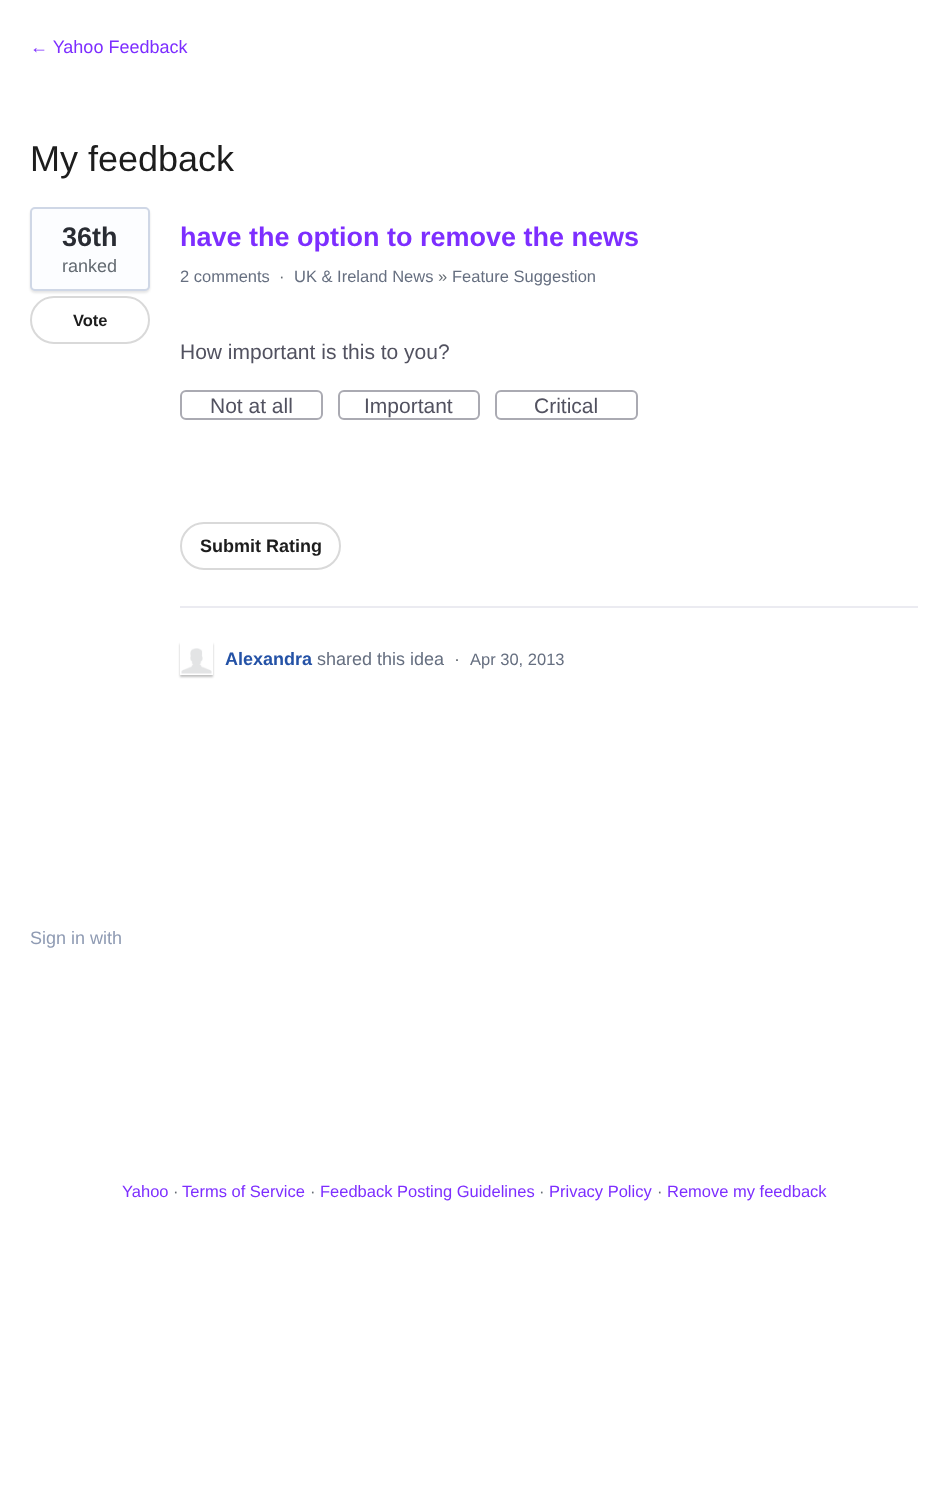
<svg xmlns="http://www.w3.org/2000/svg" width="948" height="1503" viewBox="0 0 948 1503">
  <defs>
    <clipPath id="clip1"><path d="M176 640H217V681H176ZM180 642H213V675H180Z" clip-rule="evenodd"/></clipPath>
  </defs>
  <rect width="100%" height="100%" fill="#fff"/>
  <rect x="30" y="209" width="120" height="84" rx="5" fill="#0000001a" filter="blur(1px)"/>
  <rect x="31" y="208" width="118" height="82" rx="4" fill="#fcfdff" stroke="#cfd7e6" stroke-width="2"/>
  <rect x="31" y="297" width="118" height="46" rx="23" fill="none" stroke="#d9d9d9" stroke-width="2"/>
  <path d="M180 606h738v2H180z" fill="#ebebf1"/>
  <rect x="181" y="391" width="141" height="28" rx="5" fill="none" stroke="#aaaab2" stroke-width="2"/>
  <rect x="339" y="391" width="140" height="28" rx="5" fill="none" stroke="#aaaab2" stroke-width="2"/>
  <rect x="496" y="391" width="141" height="28" rx="5" fill="none" stroke="#aaaab2" stroke-width="2"/>
  <rect x="181" y="523" width="159" height="46" rx="23" fill="none" stroke="#d9d9d9" stroke-width="2"/>
  <g clip-path="url(#clip1)">
    <path d="M180 644h33v33H180z" fill="#00000040" filter="blur(1px)"/>
  </g>
  <image x="181" y="648" width="31" height="26" href="img/1.png"/>
  <text x="30" y="53" font-family="Liberation Sans" font-size="18" fill="#7d2eff">← Yahoo Feedback</text>
  <text x="30" y="171" font-family="Liberation Sans" font-size="36" fill="#1d1d1d">My feedback</text>
  <text x="62" y="246" font-family="Liberation Sans" font-size="27" font-weight="bold" fill="#292c33">36th</text>
  <text x="62" y="272" font-family="Liberation Sans" font-size="18" fill="#646b72">ranked</text>
  <text x="73" y="326" font-family="Liberation Sans" font-size="16.5" font-weight="bold" fill="#1d1d1d">Vote</text>
  <text x="180" y="246" font-family="Liberation Sans" font-size="27" font-weight="bold" fill="#7d2eff">have the option to remove the news</text>
  <text x="180" y="282" font-family="Liberation Sans" font-size="16.5" fill="#666f80">2 comments</text>
  <text x="279" y="282" font-family="Liberation Sans" font-size="16.5" fill="#646b72">·</text>
  <text x="294" y="282" font-family="Liberation Sans" font-size="16.5" fill="#666f80">UK &amp; Ireland News</text>
  <text x="438" y="282" font-family="Liberation Sans" font-size="16.5" fill="#646b72">»</text>
  <text x="452" y="282" font-family="Liberation Sans" font-size="16.5" fill="#666f80">Feature Suggestion</text>
  <g font-family="Liberation Sans" font-size="21" fill="#525260">
    <text x="180" y="359">How important is this to you?</text>
    <text x="210" y="413">Not at all</text>
    <text x="364" y="413">Important</text>
    <text x="534" y="413">Critical</text>
  </g>
  <text x="200" y="552" font-family="Liberation Sans" font-size="18" font-weight="bold" fill="#1d1d1d">Submit Rating</text>
  <text x="225" y="665" font-family="Liberation Sans" font-size="18" font-weight="bold" fill="#2452a6">Alexandra</text>
  <text x="317" y="665" font-family="Liberation Sans" font-size="18" fill="#666f80">shared this idea</text>
  <text x="454" y="665" font-family="Liberation Sans" font-size="18" fill="#646b72">·</text>
  <text x="470" y="665" font-family="Liberation Sans" font-size="16.5" fill="#666f80">Apr 30, 2013</text>
  <text x="30" y="944" font-family="Liberation Sans" font-size="18" fill="#8f9bb3">Sign in with</text>
  <text x="122" y="1197" font-family="Liberation Sans" font-size="16.5" fill="#7d2eff">Yahoo</text>
  <text x="173" y="1197" font-family="Liberation Sans" font-size="16.5" fill="#646b72">·</text>
  <text x="182" y="1197" font-family="Liberation Sans" font-size="16.5" fill="#7d2eff">Terms of Service</text>
  <text x="310" y="1197" font-family="Liberation Sans" font-size="16.5" fill="#646b72">·</text>
  <text x="320" y="1197" font-family="Liberation Sans" font-size="16.5" fill="#7d2eff">Feedback Posting Guidelines</text>
  <text x="539" y="1197" font-family="Liberation Sans" font-size="16.5" fill="#646b72">·</text>
  <text x="549" y="1197" font-family="Liberation Sans" font-size="16.5" fill="#7d2eff">Privacy Policy</text>
  <text x="657" y="1197" font-family="Liberation Sans" font-size="16.5" fill="#646b72">·</text>
  <text x="667" y="1197" font-family="Liberation Sans" font-size="16.5" fill="#7d2eff">Remove my feedback</text>
</svg>
